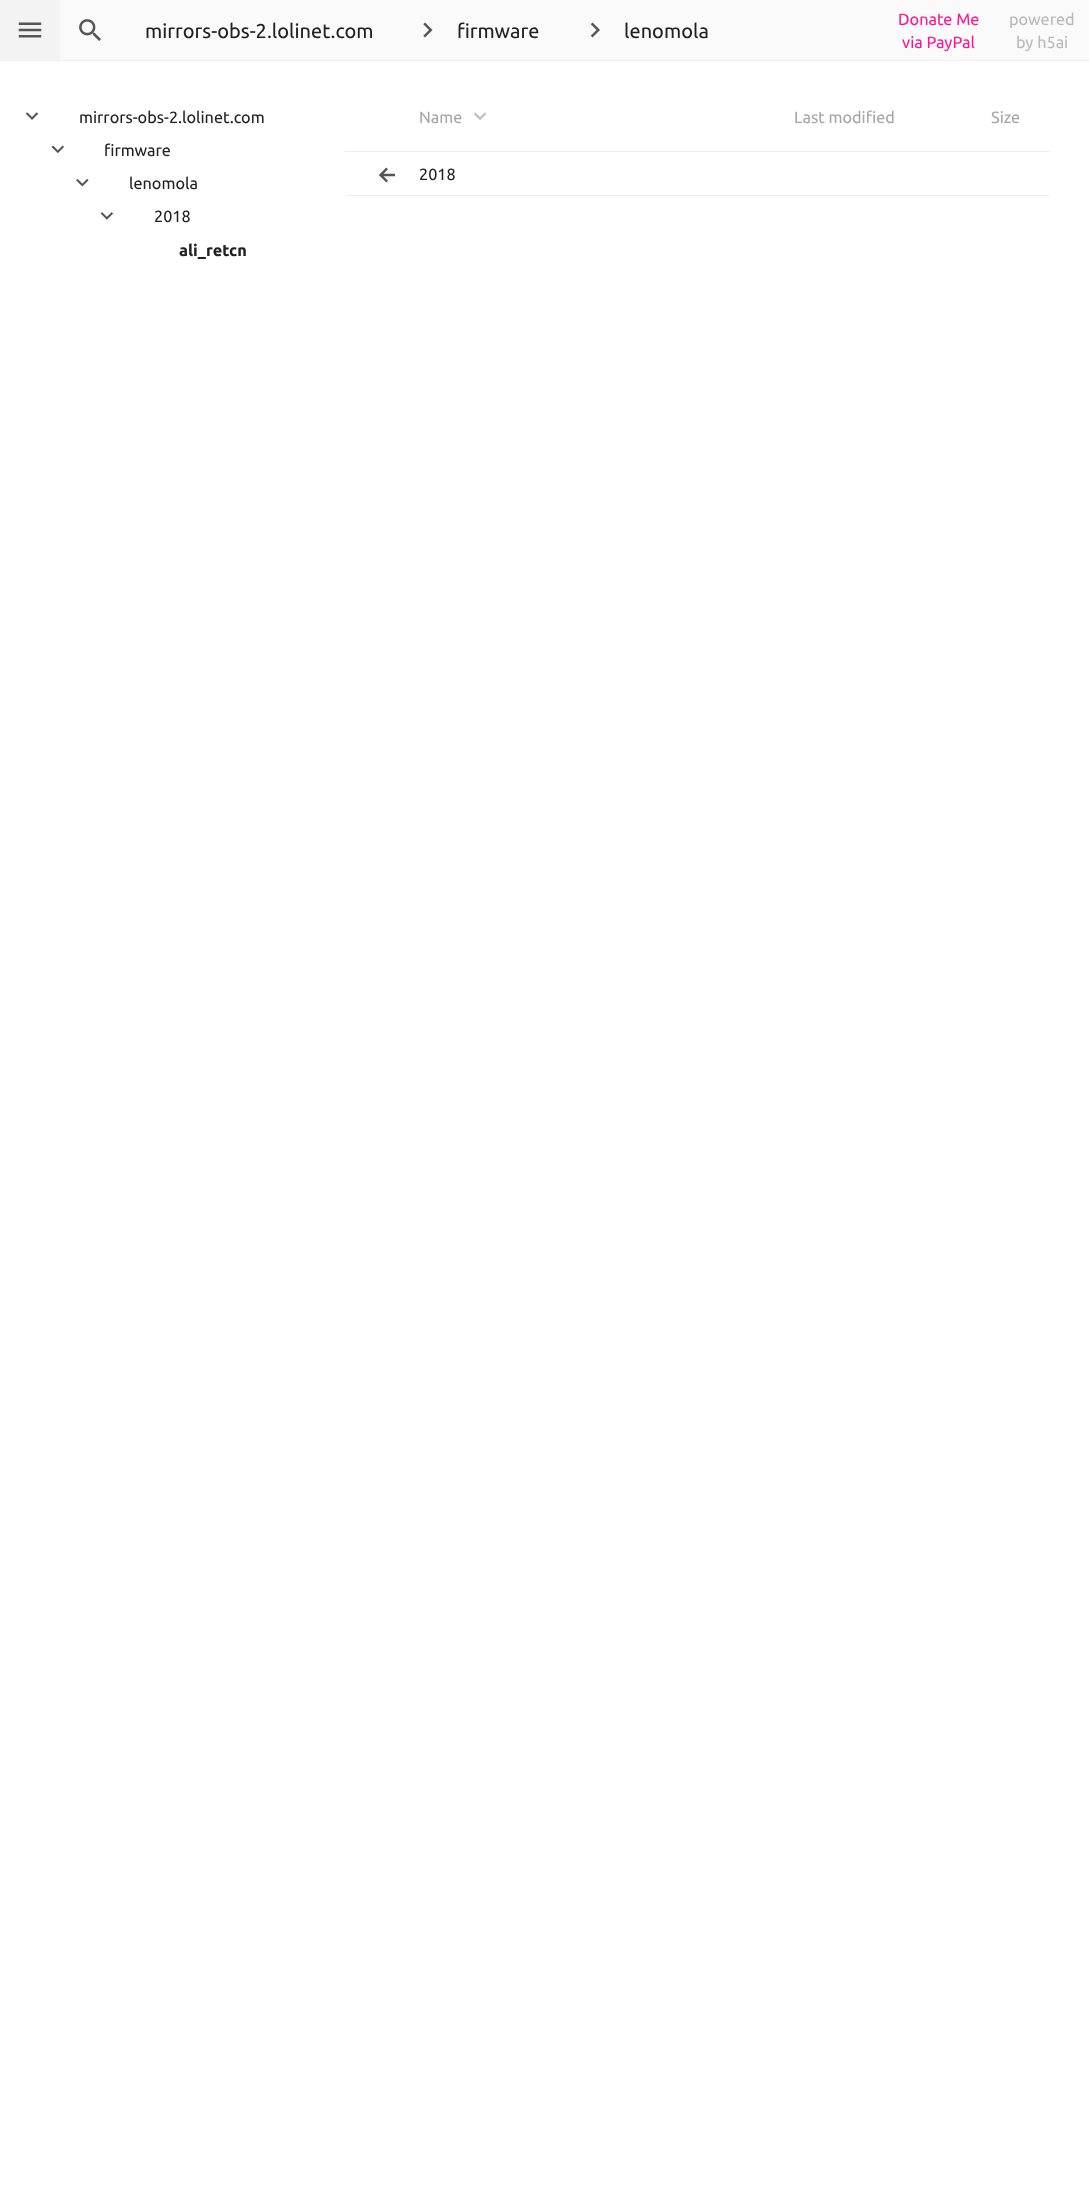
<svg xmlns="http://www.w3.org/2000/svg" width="1089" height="2205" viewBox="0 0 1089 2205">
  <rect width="100%" height="100%" fill="#fff"/>
  <path d="M60 0h1029v60H60z" fill="#fafafa"/>
  <path d="M0 60h1089v1H0z" fill="#eee"/>
  <path d="M0 0h60v60H0z" fill="#f3f3f3"/>
  <image x="18" y="22" width="24" height="16" href="img/1.png"/>
  <image x="79" y="19" width="22" height="22" href="img/2.png"/>
  <image x="423" y="22" width="10" height="16" href="img/3.png"/>
  <image x="590" y="22" width="10" height="16" href="img/4.png"/>
  <image x="25" y="112" width="14" height="8" href="img/5.png"/>
  <image x="51" y="145" width="13" height="9" href="img/6.png"/>
  <image x="76" y="178" width="13" height="9" href="img/7.png"/>
  <image x="100" y="212" width="13" height="8" href="img/8.png"/>
  <path d="M345 151h705v1H345z" fill="#ededed"/>
  <image x="474" y="112" width="12" height="8" href="img/9.png"/>
  <path d="M346 195h703v1H346z" fill="#ededed"/>
  <image x="379" y="167" width="16" height="16" href="img/10.png"/>
  <g font-family="Ubuntu" font-size="20" fill="#212121">
    <text x="145" y="38">mirrors-obs-2.lolinet.com</text>
    <text x="457" y="38">firmware</text>
    <text x="624" y="38">lenomola</text>
  </g>
  <g font-family="Ubuntu" font-size="16.25" fill="#ff1493">
    <text x="898" y="25">Donate Me</text>
    <text x="902" y="48">via PayPal</text>
  </g>
  <g font-family="Ubuntu" font-size="16.25" fill="#b9b9b9">
    <text x="1009" y="25">powered</text>
    <text x="1016" y="48">by h5ai</text>
  </g>
  <g font-family="Ubuntu" font-size="16.25" fill="#212121">
    <text x="79" y="123">mirrors-obs-2.lolinet.com</text>
    <text x="104" y="156">firmware</text>
    <text x="129" y="189">lenomola</text>
    <text x="154" y="222">2018</text>
  </g>
  <text x="179" y="256" font-family="Ubuntu" font-size="16.25" font-weight="bold" fill="#212121">ali_retcn</text>
  <g font-family="Ubuntu" font-size="16.25" fill="#a6a6a6">
    <text x="419" y="123">Name</text>
    <text x="794" y="123">Last modified</text>
    <text x="991" y="123">Size</text>
  </g>
  <text x="419" y="180" font-family="Ubuntu" font-size="16.25" fill="#212121">2018</text>
</svg>
